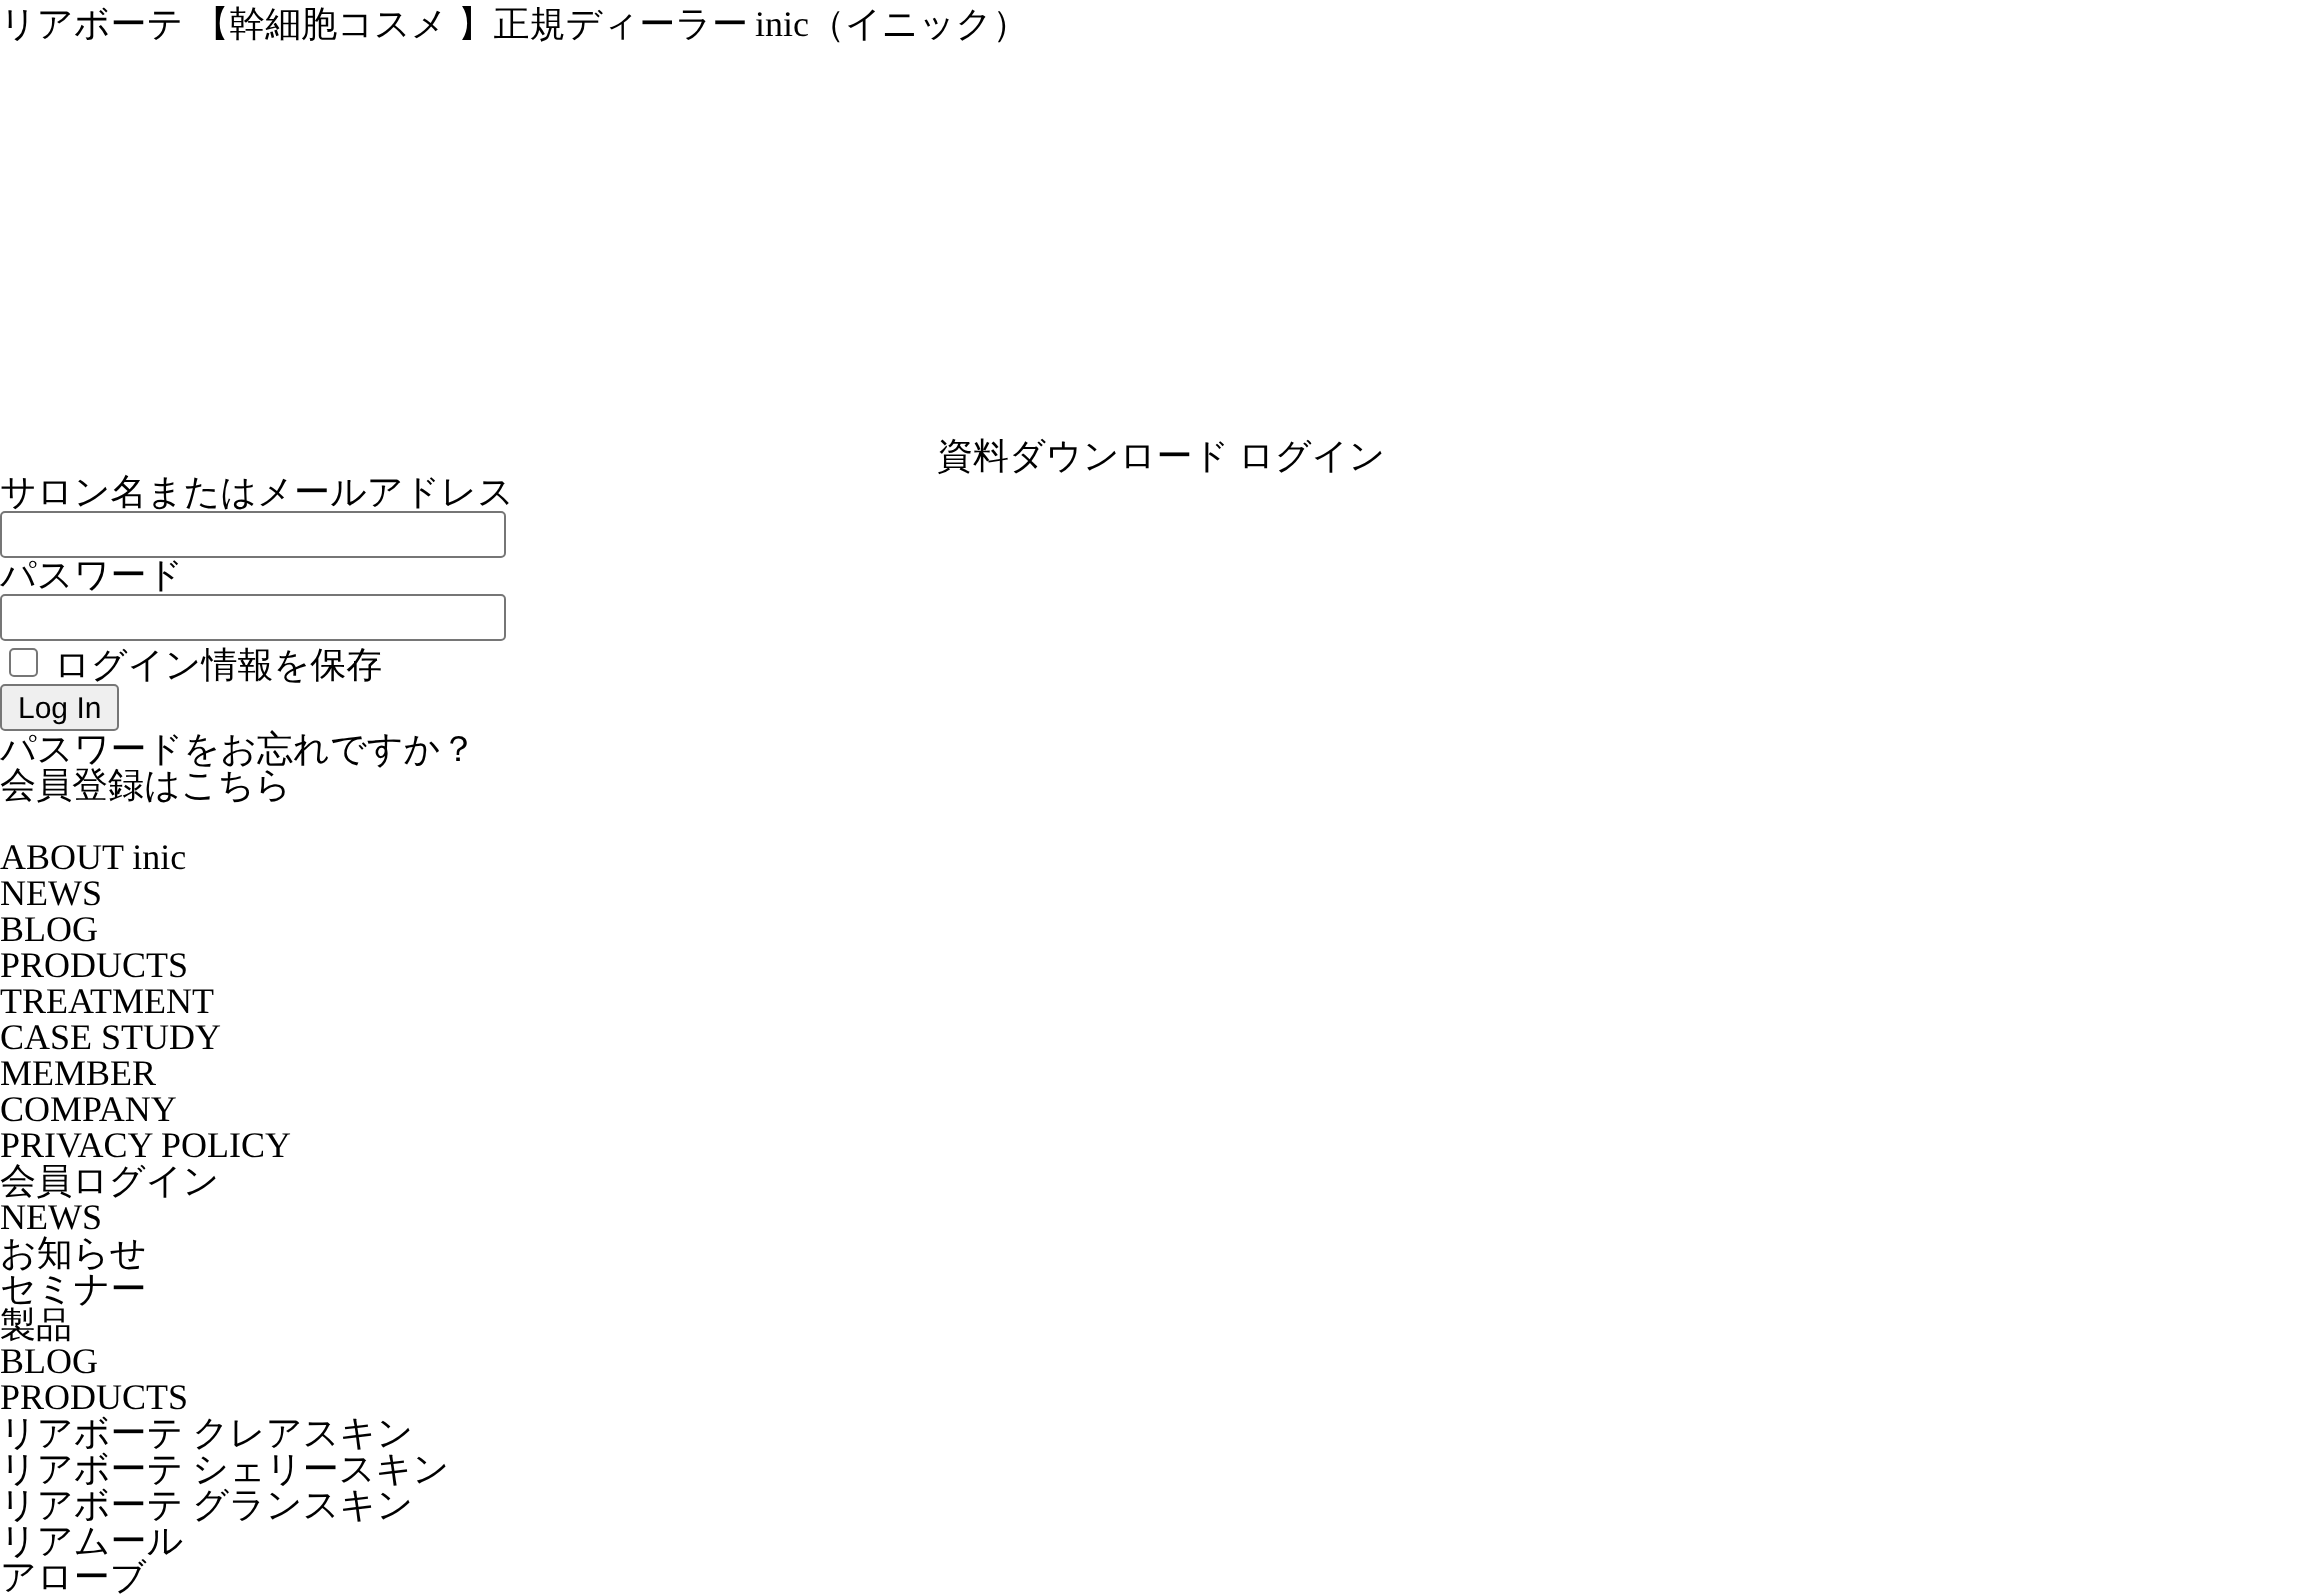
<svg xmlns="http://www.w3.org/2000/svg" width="2321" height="1594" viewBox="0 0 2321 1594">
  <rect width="100%" height="100%" fill="#fff"/>
  <rect x="1" y="512" width="504" height="45" rx="4" fill="none" stroke="#767676" stroke-width="2"/>
  <rect x="1" y="595" width="504" height="45" rx="4" fill="none" stroke="#767676" stroke-width="2"/>
  <rect x="10" y="649" width="27" height="27" rx="4" fill="none" stroke="#767676" stroke-width="2"/>
  <text x="0" y="36" word-spacing="-1" font-family="WenQuanYi Zen Hei" font-size="36" font-weight="500" fill="#000">リアボーテ 【幹細胞コスメ 】正規ディーラー</text>
  <text x="755" y="36" font-family="Liberation Serif" font-size="36" fill="#000">inic</text>
  <g font-family="WenQuanYi Zen Hei" font-size="36" font-weight="500" fill="#000">
    <text x="809" y="36">（イニック）</text>
    <text x="937" y="468" word-spacing="-2">資料ダウンロード ログイン</text>
    <text x="0" y="504">サロン名またはメールアドレス</text>
    <text x="0" y="587">パスワード</text>
    <text x="54" y="677">ログイン情報を保存</text>
    <text x="0" y="761">パスワードをお忘れですか？</text>
  </g>
  <rect x="1" y="685" width="117" height="45" rx="4" fill="#efefef" stroke="#767676" stroke-width="2"/>
  <text x="18" y="718" font-family="Liberation Sans" font-size="30" fill="#000">Log In</text>
  <text x="0" y="797" font-family="WenQuanYi Zen Hei" font-size="36" font-weight="500" fill="#000">会員登録はこちら</text>
  <g font-family="Liberation Serif" font-size="36" fill="#000">
    <text x="0" y="869">ABOUT inic</text>
    <text x="0" y="905">NEWS</text>
    <text x="0" y="941">BLOG</text>
    <text x="0" y="977">PRODUCTS</text>
    <text x="0" y="1013">TREATMENT</text>
    <text x="0" y="1049">CASE STUDY</text>
    <text x="0" y="1085">MEMBER</text>
    <text x="0" y="1121">COMPANY</text>
    <text x="0" y="1157">PRIVACY POLICY</text>
  </g>
  <text x="0" y="1193" font-family="WenQuanYi Zen Hei" font-size="36" font-weight="500" fill="#000">会員ログイン</text>
  <text x="0" y="1229" font-family="Liberation Serif" font-size="36" fill="#000">NEWS</text>
  <g font-family="WenQuanYi Zen Hei" font-size="36" font-weight="500" fill="#000">
    <text x="0" y="1265">お知らせ</text>
    <text x="0" y="1301">セミナー</text>
    <text x="0" y="1337">製品</text>
  </g>
  <g font-family="Liberation Serif" font-size="36" fill="#000">
    <text x="0" y="1373">BLOG</text>
    <text x="0" y="1409">PRODUCTS</text>
  </g>
  <g font-family="WenQuanYi Zen Hei" font-size="36" font-weight="500" fill="#000">
    <text x="0" y="1445" word-spacing="-2">リアボーテ クレアスキン</text>
    <text x="0" y="1481" word-spacing="-2">リアボーテ シェリースキン</text>
    <text x="0" y="1517" word-spacing="-2">リアボーテ グランスキン</text>
    <text x="0" y="1553">リアムール</text>
    <text x="0" y="1589">アローブ</text>
  </g>
</svg>
